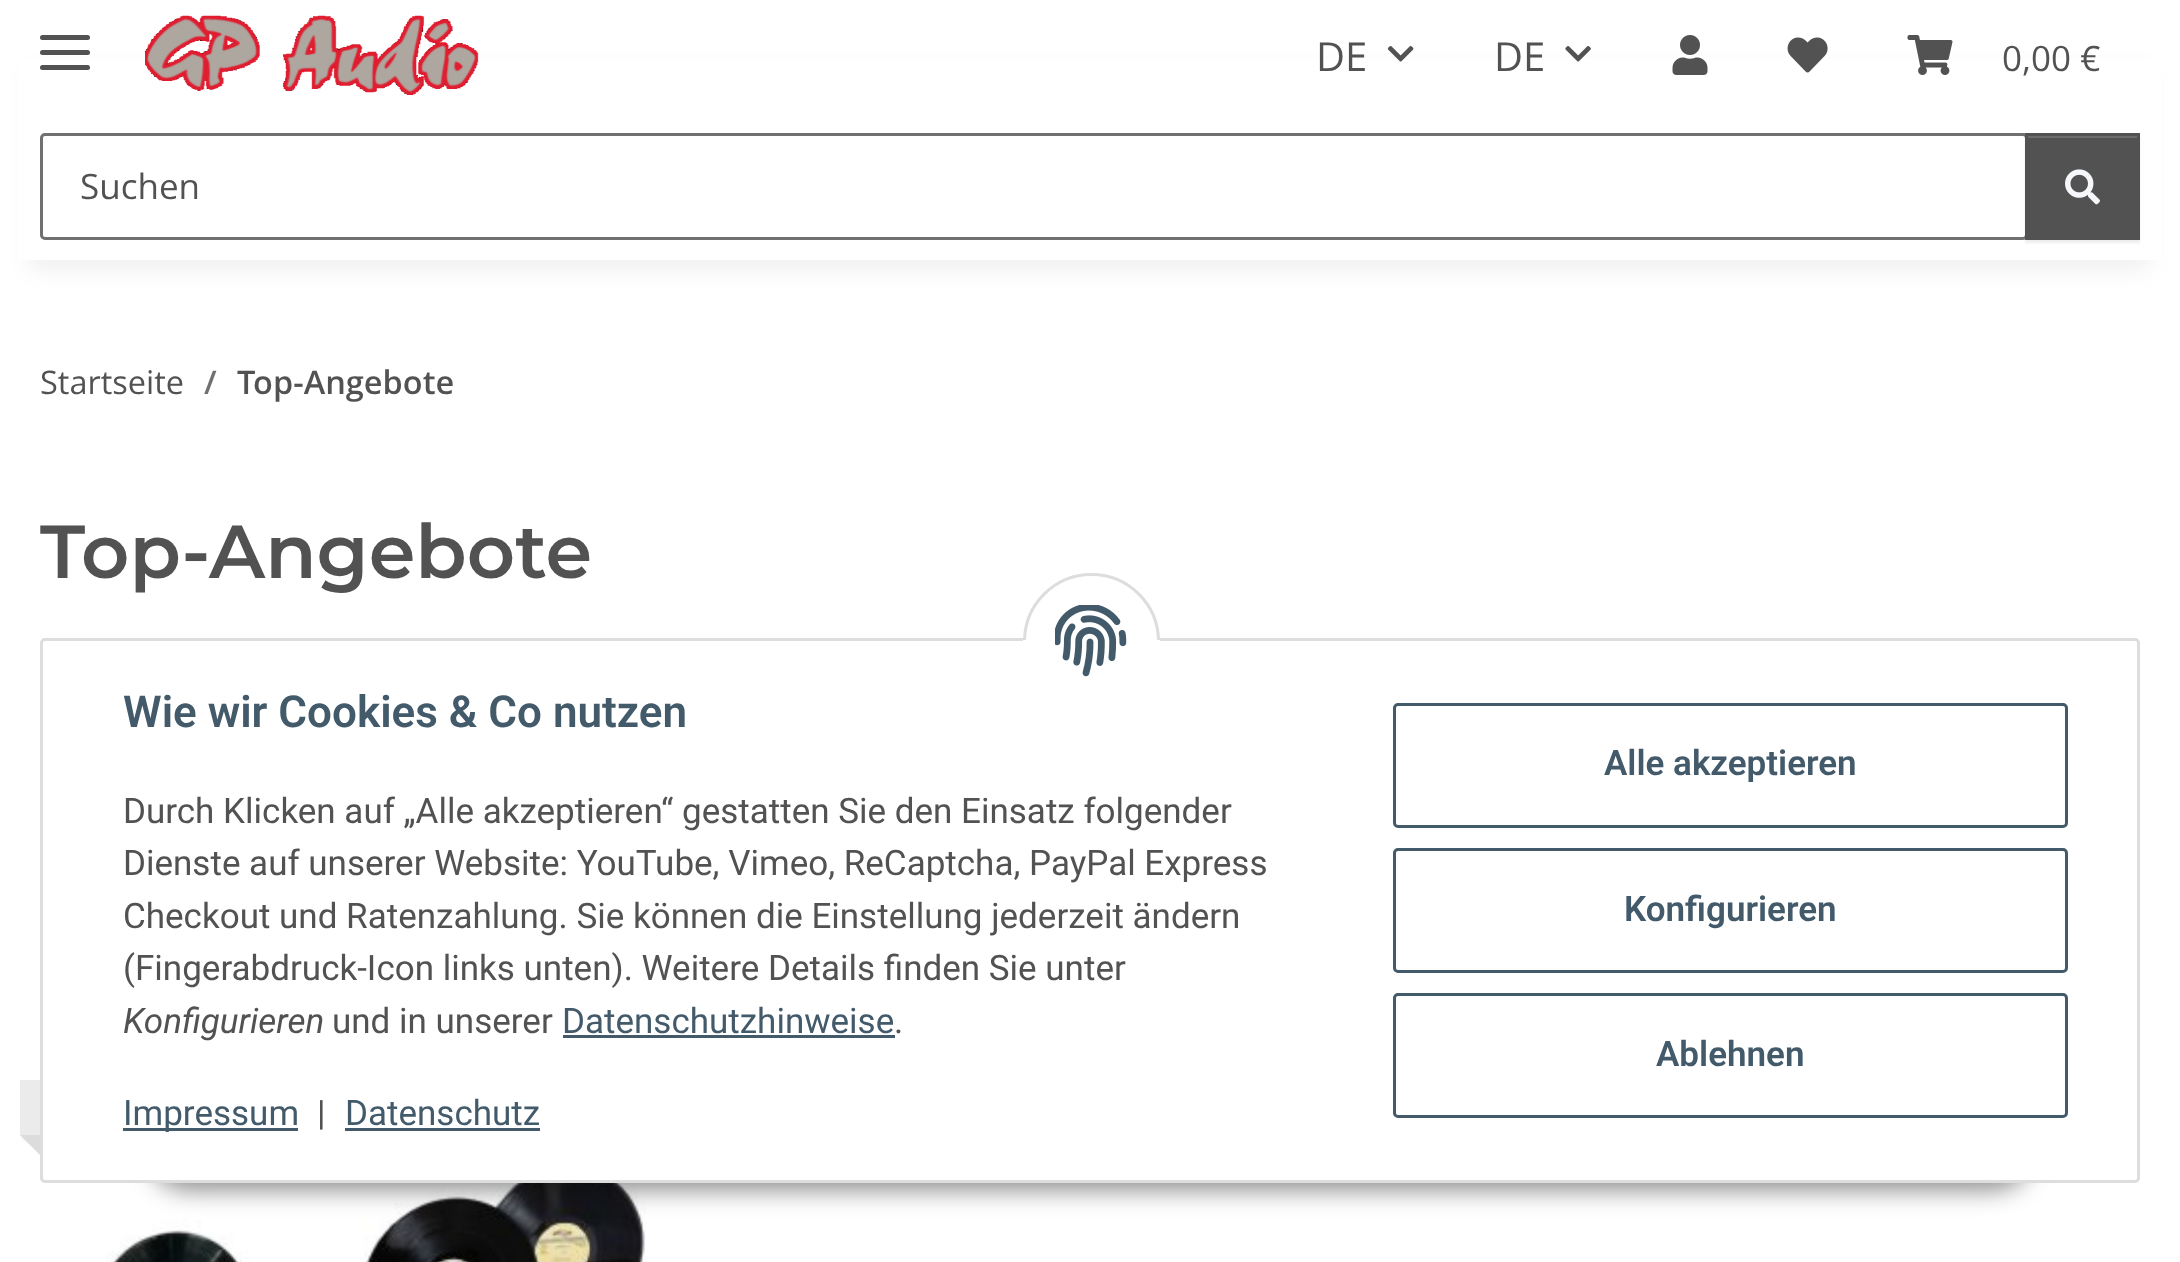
<svg xmlns="http://www.w3.org/2000/svg" width="2180" height="1262" viewBox="0 0 2180 1262">
  <rect width="100%" height="100%" fill="#fff"/>
  <path d="M30 70h2120v200H30z" fill="#0000000f" filter="blur(11px)"/>
  <path d="M19 59h2142v201H19z" fill="#fff"/>
  <rect x="40" y="50" width="50" height="5" rx="2.5" fill="#525252"/>
  <rect x="40" y="35" width="50" height="5" rx="2.5" fill="#525252"/>
  <rect x="40" y="65" width="50" height="5" rx="2.5" fill="#525252"/>
  <image x="145" y="15" width="334" height="80" href="img/1.png"/>
  <image x="1387" y="46" width="27" height="16" href="img/2.png"/>
  <image x="1565" y="46" width="26" height="16" href="img/3.png"/>
  <image x="1672" y="35" width="36" height="40" href="img/4.png"/>
  <image x="1787" y="37" width="41" height="36" href="img/5.png"/>
  <image x="1907" y="35" width="46" height="40" href="img/6.png"/>
  <rect x="41.5" y="134.5" width="1985" height="104" rx="3.5" fill="none" stroke="#707070" stroke-width="3"/>
  <path d="M2025 135h115v108H2025z" fill="#00000012" filter="blur(1px)"/>
  <path d="M2028 138h109v99H2028z" fill="#525252"/>
  <path d="M2028 136h110v2H2028z" fill="#6c6c6c"/>
  <path d="M2026.5 134.5h112v104H2026.5z" fill="none" stroke="#525252" stroke-width="3"/>
  <image x="2065" y="169" width="35" height="36" href="img/7.png"/>
  <rect x="25" y="1085" width="125" height="55" rx="5" fill="#0000004d" filter="blur(2.5px)"/>
  <path d="M20 1080h20v55H20z" fill="#ebebeb"/>
  <path d="M40 1135V1155L20 1135Z" fill="#dcdcdc"/>
  <image x="106" y="1183" width="540" height="79" href="img/8.png"/>
  <rect x="148" y="1110" width="1885" height="80" rx="40" fill="#00000073" filter="blur(12.5px)"/>
  <rect x="41.5" y="639.5" width="2097" height="542" rx="3.5" fill="#fff" stroke="#ddd" stroke-width="3"/>
  <circle cx="1091.5" cy="641.5" r="67" fill="#fff" stroke="#ddd" stroke-width="3"/>
  <path d="M1023 640h137v70H1023z" fill="#fff"/>
  <image x="1055" y="605" width="72" height="72" href="img/9.png"/>
  <path d="M563 1035h332v3H563z" fill="#435a6b"/>
  <path d="M123 1128h175v3H123z" fill="#435a6b"/>
  <path d="M345 1128h195v3H345z" fill="#435a6b"/>
  <rect x="1394.5" y="704.5" width="672" height="122" rx="3.5" fill="none" stroke="#435a6b" stroke-width="3"/>
  <rect x="1394.5" y="849.5" width="672" height="122" rx="3.5" fill="none" stroke="#435a6b" stroke-width="3"/>
  <rect x="1394.5" y="994.5" width="672" height="122" rx="3.5" fill="none" stroke="#435a6b" stroke-width="3"/>
  <g font-family="Open Sans" font-size="40" fill="#525252">
    <text x="1316" y="71">DE</text>
    <text x="1494" y="71">DE</text>
  </g>
  <g font-family="Open Sans" font-size="35" fill="#525252">
    <text x="2002" y="71">0,00 €</text>
    <text x="80" y="199">Suchen</text>
  </g>
  <text x="40" y="394" font-family="Open Sans" font-size="32.5" fill="#525252">Startseite</text>
  <text x="204" y="394" font-family="Open Sans" font-size="32.5" font-weight="600" fill="#707070">/</text>
  <text x="237" y="394" font-family="Open Sans" font-size="32.5" font-weight="600" fill="#525252">Top-Angebote</text>
  <text x="40" y="578" font-family="Montserrat" font-size="75" font-weight="600" fill="#525252">Top-Angebote</text>
  <text x="123" y="727" font-family="Roboto" font-size="44" font-weight="600" fill="#435a6b">Wie wir Cookies &amp; Co nutzen</text>
  <g font-family="Roboto" font-size="35" fill="#525252">
    <text x="123" y="823">Durch Klicken auf „Alle akzeptieren“ gestatten Sie den Einsatz folgender</text>
    <text x="123" y="875">Dienste auf unserer Website: YouTube, Vimeo, ReCaptcha, PayPal Express</text>
    <text x="123" y="928">Checkout und Ratenzahlung. Sie können die Einstellung jederzeit ändern</text>
    <text x="123" y="980">(Fingerabdruck-Icon links unten). Weitere Details finden Sie unter</text>
  </g>
  <text x="123" y="1033" font-family="Roboto" font-size="35" font-style="italic" fill="#525252">Konfigurieren</text>
  <text x="332" y="1033" font-family="Roboto" font-size="35" fill="#525252">und in unserer</text>
  <text x="562" y="1033" font-family="Roboto" font-size="35" fill="#435a6b">Datenschutzhinweise</text>
  <text x="894" y="1033" font-family="Roboto" font-size="35" fill="#525252">.</text>
  <text x="123" y="1125" font-family="Roboto" font-size="35" fill="#435a6b">Impressum</text>
  <text x="317" y="1125" font-family="Roboto" font-size="35" fill="#525252">|</text>
  <text x="345" y="1125" font-family="Roboto" font-size="35" fill="#435a6b">Datenschutz</text>
  <g font-family="Roboto" font-size="35" font-weight="600" fill="#435a6b">
    <text x="1604" y="775">Alle akzeptieren</text>
    <text x="1624" y="921">Konfigurieren</text>
    <text x="1656" y="1066">Ablehnen</text>
  </g>
</svg>
